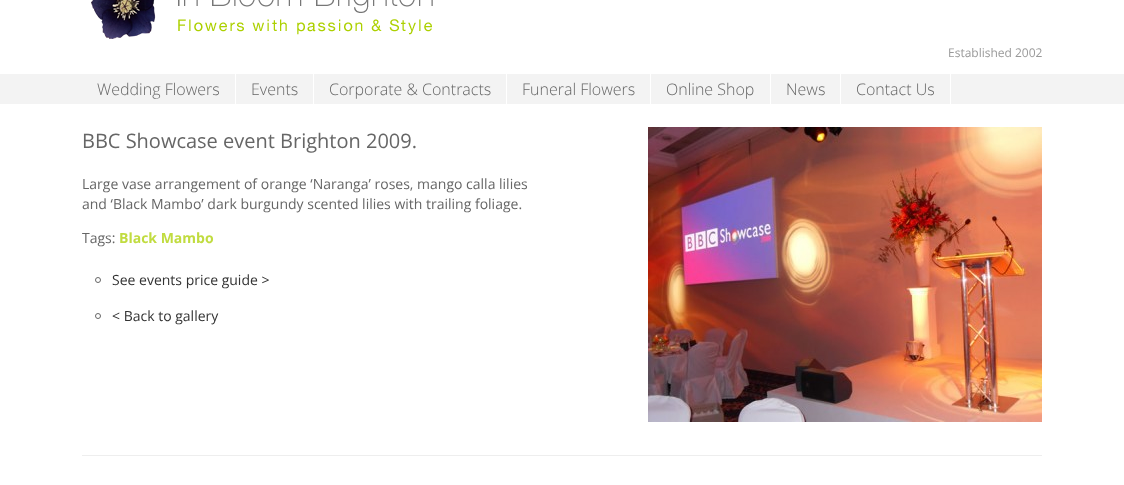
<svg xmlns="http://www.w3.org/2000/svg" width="1124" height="485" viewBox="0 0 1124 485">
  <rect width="100%" height="100%" fill="#fff"/>
  <image x="91" y="0" width="342" height="39" href="img/1.png"/>
  <path d="M0 74h1124v30H0z" fill="#f3f3f3"/>
  <path d="M235 74h1v30H235z" fill="#fff"/>
  <path d="M313 74h1v30H313z" fill="#fff"/>
  <path d="M506 74h1v30H506z" fill="#fff"/>
  <path d="M650 74h1v30H650z" fill="#fff"/>
  <path d="M770 74h1v30H770z" fill="#fff"/>
  <path d="M840 74h1v30H840z" fill="#fff"/>
  <path d="M950 74h1v30H950z" fill="#fff"/>
  <circle cx="98" cy="280" r="2.5" fill="none" stroke="#666"/>
  <circle cx="98" cy="316" r="2.5" fill="none" stroke="#666"/>
  <image x="648" y="127" width="394" height="295" href="img/2.png"/>
  <path d="M82 455h960v1H82z" fill="#eee"/>
  <text x="948" y="57" font-family="Open Sans" font-size="12" fill="#999">Established 2002</text>
  <g font-family="Open Sans" font-size="16" font-weight="300" fill="#666">
    <text x="97" y="95">Wedding Flowers</text>
    <text x="251" y="95">Events</text>
    <text x="329" y="95">Corporate &amp; Contracts</text>
    <text x="522" y="95">Funeral Flowers</text>
    <text x="666" y="95">Online Shop</text>
    <text x="786" y="95">News</text>
    <text x="856" y="95">Contact Us</text>
  </g>
  <text x="82" y="148" font-family="Open Sans" font-size="20" fill="#666">BBC Showcase event Brighton 2009.</text>
  <g font-family="Open Sans" font-size="14" fill="#666">
    <text x="82" y="189">Large vase arrangement of orange ‘Naranga’ roses, mango calla lilies</text>
    <text x="82" y="209">and ‘Black Mambo’ dark burgundy scented lilies with trailing foliage.</text>
    <text x="82" y="243">Tags:</text>
  </g>
  <text x="119" y="243" font-family="Open Sans" font-size="14" font-weight="bold" fill="#c1dc40">Black Mambo</text>
  <g font-family="Open Sans" font-size="14" fill="#333">
    <text x="112" y="285">See events price guide &gt;</text>
    <text x="112" y="321">&lt; Back to gallery</text>
  </g>
</svg>
